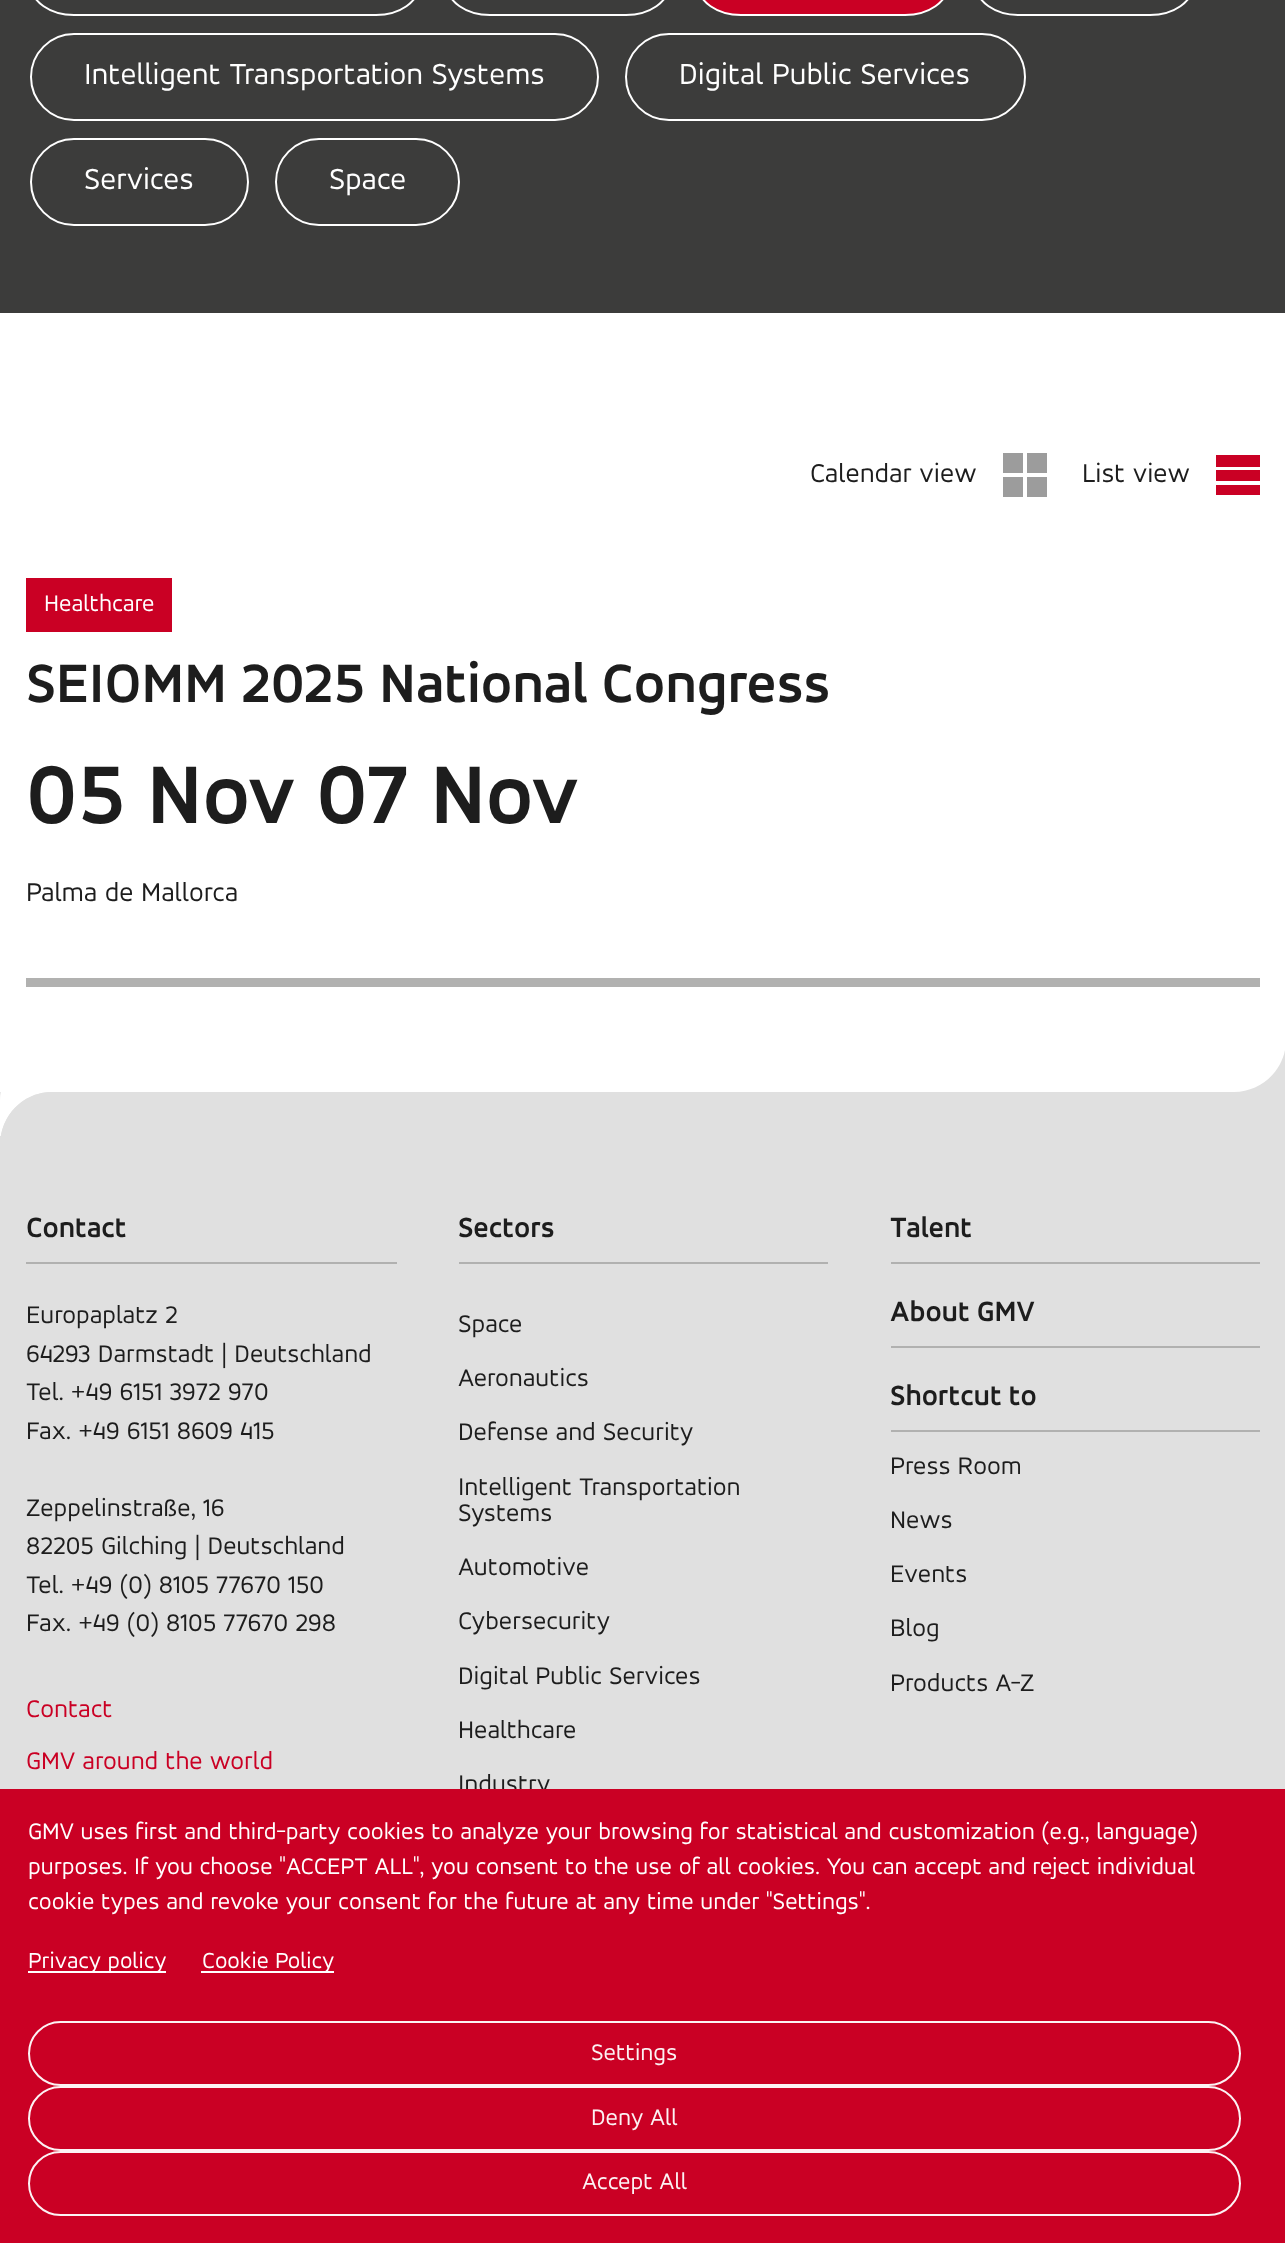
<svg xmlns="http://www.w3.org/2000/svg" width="1285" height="2243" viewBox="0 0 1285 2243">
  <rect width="100%" height="100%" fill="#fff"/>
  <path d="M0 0h1285v313H0z" fill="#3c3c3b"/>
  <rect x="31" y="-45" width="388" height="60" rx="43" fill="none" stroke="#fff" stroke-width="2"/>
  <rect x="447" y="-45" width="222" height="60" rx="43" fill="none" stroke="#fff" stroke-width="2"/>
  <rect x="698" y="-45" width="250" height="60" rx="43" fill="#ca0024" stroke="#fff" stroke-width="2"/>
  <rect x="976" y="-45" width="217" height="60" rx="43" fill="none" stroke="#fff" stroke-width="2"/>
  <rect x="31" y="34" width="567" height="86" rx="43" fill="none" stroke="#fff" stroke-width="2"/>
  <rect x="626" y="34" width="399" height="86" rx="43" fill="none" stroke="#fff" stroke-width="2"/>
  <rect x="31" y="139" width="217" height="86" rx="43" fill="none" stroke="#fff" stroke-width="2"/>
  <rect x="276" y="139" width="183" height="86" rx="43" fill="none" stroke="#fff" stroke-width="2"/>
  <path d="M1003 453h20v20H1003z" fill="#9c9c9c"/>
  <path d="M1027 453h20v20H1027z" fill="#9c9c9c"/>
  <path d="M1003 477h20v20H1003z" fill="#9c9c9c"/>
  <path d="M1027 477h20v20H1027z" fill="#9c9c9c"/>
  <path d="M1216 455h44v12H1216z" fill="#ca0024"/>
  <path d="M1216 470h44v11H1216z" fill="#ca0024"/>
  <path d="M1216 485h44v10H1216z" fill="#ca0024"/>
  <path d="M26 978h1234v9H26z" fill="#b1b1b0"/>
  <path d="M26 578h146v54H26z" fill="#ca0024"/>
  <path d="M0 1050h1285v739H0z" fill="#e0e0e0"/>
  <path d="M0 1040H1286C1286 1068.5 1262.5 1092 1234 1092H0Z" fill="#fff"/>
  <path d="M53 1048C24 1048 0 1072 0 1101V1136H1C5 1111 26 1092 52 1092V1136H53Z" fill="#fff"/>
  <path d="M53 1092V1180H0V1145C0 1115.5 23.5 1092 53 1092Z" fill="#e0e0e0"/>
  <path d="M26 1262h371v2H26z" fill="#b1b1b0"/>
  <path d="M459 1262h369v2H459z" fill="#b1b1b0"/>
  <path d="M891 1262h369v2H891z" fill="#b1b1b0"/>
  <path d="M891 1346h369v2H891z" fill="#b1b1b0"/>
  <path d="M891 1430h369v2H891z" fill="#b1b1b0"/>
  <g font-family="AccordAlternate" font-size="31.5" fill="#fff">
    <text x="84" y="84">Intelligent Transportation Systems</text>
    <text x="679" y="84">Digital Public Services</text>
    <text x="84" y="189">Services</text>
    <text x="329" y="189">Space</text>
  </g>
  <g font-family="AccordAlternate" font-size="28" fill="#1d1d1d">
    <text x="810" y="482">Calendar view</text>
    <text x="1082" y="482">List view</text>
  </g>
  <text x="44" y="611" font-family="AccordAlternate" font-size="24.5" fill="#fff">Healthcare</text>
  <text x="26" y="702" font-family="AccordAlternate" font-size="57.75" font-weight="bold" fill="#1d1d1d">SEIOMM 2025 National Congress</text>
  <text x="26" y="823" font-family="AccordAlternate" font-size="87.5" font-weight="bold" fill="#1d1d1d">05 Nov 07 Nov</text>
  <text x="26" y="901" font-family="AccordAlternate" font-size="28" fill="#1d1d1d">Palma de Mallorca</text>
  <text x="26" y="1237" font-family="AccordAlternate" font-size="29.75" font-weight="bold" fill="#1d1d1d">Contact</text>
  <g font-family="AccordAlternate" font-size="26.25" fill="#1d1d1d">
    <text x="26" y="1323">Europaplatz 2</text>
    <text x="26" y="1362">64293 Darmstadt | Deutschland</text>
    <text x="26" y="1400">Tel. +49 6151 3972 970</text>
    <text x="26" y="1439">Fax. +49 6151 8609 415</text>
    <text x="26" y="1516">Zeppelinstraße, 16</text>
    <text x="26" y="1554">82205 Gilching | Deutschland</text>
    <text x="26" y="1593">Tel. +49 (0) 8105 77670 150</text>
    <text x="26" y="1631">Fax. +49 (0) 8105 77670 298</text>
  </g>
  <g font-family="AccordAlternate" font-size="26.25" fill="#ca0024">
    <text x="26" y="1717">Contact</text>
    <text x="26" y="1769">GMV around the world</text>
  </g>
  <text x="458" y="1237" font-family="AccordAlternate" font-size="29.75" font-weight="bold" fill="#1d1d1d">Sectors</text>
  <g font-family="AccordAlternate" font-size="26.25" fill="#1d1d1d">
    <text x="458" y="1332">Space</text>
    <text x="458" y="1386">Aeronautics</text>
    <text x="458" y="1440">Defense and Security</text>
    <text x="458" y="1495">Intelligent Transportation</text>
    <text x="458" y="1521">Systems</text>
    <text x="458" y="1575">Automotive</text>
    <text x="458" y="1629">Cybersecurity</text>
    <text x="458" y="1684">Digital Public Services</text>
    <text x="458" y="1738">Healthcare</text>
    <text x="458" y="1792">Industry</text>
  </g>
  <path d="M0 1789h1285v454H0z" fill="#ca0024"/>
  <rect x="29" y="2152" width="1211" height="63" rx="31.5" fill="none" stroke="#fcf2f4" stroke-width="2"/>
  <text x="582" y="2189" font-family="AccordAlternate" font-size="24.5" fill="#fcf2f4">Accept All</text>
  <rect x="29" y="2087" width="1211" height="63" rx="31.5" fill="none" stroke="#fcf2f4" stroke-width="2"/>
  <text x="591" y="2125" font-family="AccordAlternate" font-size="24.5" fill="#fcf2f4">Deny All</text>
  <rect x="29" y="2022" width="1211" height="63" rx="31.5" fill="none" stroke="#fcf2f4" stroke-width="2"/>
  <text x="591" y="2060" font-family="AccordAlternate" font-size="24.5" fill="#fcf2f4">Settings</text>
  <path d="M201 1971h133v2H201z" fill="#fff"/>
  <text x="202" y="1968" font-family="AccordAlternate" font-size="23.75" fill="#fff">Cookie Policy</text>
  <path d="M28 1971h138v2H28z" fill="#fff"/>
  <text x="28" y="1968" font-family="AccordAlternate" font-size="23.75" fill="#fff">Privacy policy</text>
  <g font-family="AccordAlternate" font-size="24.5" fill="#fff">
    <text x="28" y="1909">cookie types and revoke your consent for the future at any time under "Settings".</text>
    <text x="28" y="1874">purposes. If you choose "ACCEPT ALL", you consent to the use of all cookies. You can accept and reject individual</text>
    <text x="28" y="1839">GMV uses first and third-party cookies to analyze your browsing for statistical and customization (e.g., language)</text>
  </g>
  <g font-family="AccordAlternate" font-size="29.75" font-weight="bold" fill="#1d1d1d">
    <text x="890" y="1237">Talent</text>
    <text x="890" y="1321">About GMV</text>
    <text x="890" y="1405">Shortcut to</text>
  </g>
  <g font-family="AccordAlternate" font-size="26.25" fill="#1d1d1d">
    <text x="890" y="1474">Press Room</text>
    <text x="890" y="1528">News</text>
    <text x="890" y="1582">Events</text>
    <text x="890" y="1636">Blog</text>
    <text x="890" y="1691">Products A-Z</text>
  </g>
</svg>
